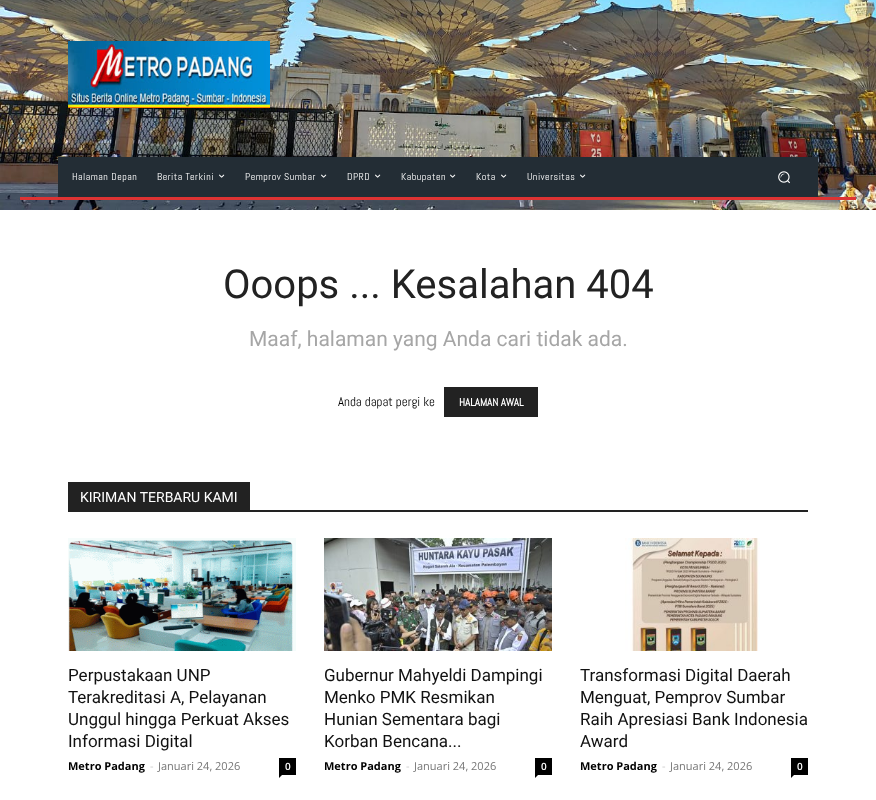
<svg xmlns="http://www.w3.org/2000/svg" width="876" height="800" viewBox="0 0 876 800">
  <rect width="100%" height="100%" fill="#fff"/>
  <image x="0" y="0" width="876" height="210" href="img/1.png"/>
  <image x="68" y="41" width="202" height="67" href="img/2.png"/>
  <path d="M58 157h760v40H58z" fill="#232d35"/>
  <image x="219" y="174" width="6" height="4" href="img/3.png"/>
  <image x="321" y="174" width="6" height="4" href="img/3.png"/>
  <image x="375" y="174" width="6" height="4" href="img/3.png"/>
  <image x="450" y="174" width="6" height="4" href="img/3.png"/>
  <image x="501" y="174" width="6" height="4" href="img/3.png"/>
  <image x="580" y="174" width="6" height="4" href="img/3.png"/>
  <image x="778" y="171" width="12" height="13" href="img/4.png"/>
  <path d="M20 197h836v3H20z" fill="#d33"/>
  <path d="M444 387h94v30H444z" fill="#222"/>
  <path d="M68 510h740v2H68z" fill="#222"/>
  <path d="M68 482h182v28H68z" fill="#222"/>
  <image x="68" y="538" width="228" height="113" href="img/5.png"/>
  <path d="M279 758h17v17H279z" fill="#000"/>
  <path d="M279 775H282L279 778Z" fill="#000"/>
  <image x="324" y="538" width="228" height="113" href="img/6.png"/>
  <path d="M535 758h17v17H535z" fill="#000"/>
  <path d="M535 775H538L535 778Z" fill="#000"/>
  <image x="625" y="538" width="135" height="113" href="img/7.png"/>
  <path d="M791 758h17v17H791z" fill="#000"/>
  <path d="M791 775H794L791 778Z" fill="#000"/>
  <g font-family="Abel" font-size="10" letter-spacing="0.5" fill="#fff">
    <text x="72" y="180">Halaman Depan</text>
    <text x="157" y="180">Berita Terkini</text>
    <text x="245" y="180">Pemprov Sumbar</text>
    <text x="347" y="180">DPRD</text>
    <text x="401" y="180">Kabupaten</text>
    <text x="476" y="180">Kota</text>
    <text x="527" y="180">Universitas</text>
  </g>
  <text x="223" y="298" font-family="Roboto" font-size="40" fill="#222">Ooops ... Kesalahan 404</text>
  <text x="249" y="346" font-family="Roboto" font-size="21" fill="#a6a6a6">Maaf, halaman yang Anda cari tidak ada.</text>
  <text x="338" y="406" font-family="Abel" font-size="13" fill="#000">Anda dapat pergi ke</text>
  <text x="459" y="406" font-family="Abel" font-size="11" font-weight="bold" fill="#fff">HALAMAN AWAL</text>
  <text x="80" y="502" font-family="Roboto" font-size="14" fill="#fff">KIRIMAN TERBARU KAMI</text>
  <g font-family="Roboto" font-size="17" fill="#111">
    <text x="68" y="681">Perpustakaan UNP</text>
    <text x="68" y="703">Terakreditasi A, Pelayanan</text>
    <text x="68" y="725">Unggul hingga Perkuat Akses</text>
    <text x="68" y="747">Informasi Digital</text>
  </g>
  <text x="68" y="770" font-family="Open Sans" font-size="11" font-weight="bold" fill="#000">Metro Padang</text>
  <text x="150" y="770" font-family="Open Sans" font-size="11" fill="#ccc">-</text>
  <text x="158" y="770" font-family="Open Sans" font-size="11" fill="#767676">Januari 24, 2026</text>
  <text x="285" y="770" font-family="Open Sans" font-size="10" font-weight="600" fill="#fff">0</text>
  <g font-family="Roboto" font-size="17" fill="#111">
    <text x="324" y="681">Gubernur Mahyeldi Dampingi</text>
    <text x="324" y="703">Menko PMK Resmikan</text>
    <text x="324" y="725">Hunian Sementara bagi</text>
    <text x="324" y="747">Korban Bencana...</text>
  </g>
  <text x="324" y="770" font-family="Open Sans" font-size="11" font-weight="bold" fill="#000">Metro Padang</text>
  <text x="406" y="770" font-family="Open Sans" font-size="11" fill="#ccc">-</text>
  <text x="414" y="770" font-family="Open Sans" font-size="11" fill="#767676">Januari 24, 2026</text>
  <text x="541" y="770" font-family="Open Sans" font-size="10" font-weight="600" fill="#fff">0</text>
  <g font-family="Roboto" font-size="17" fill="#111">
    <text x="580" y="681">Transformasi Digital Daerah</text>
    <text x="580" y="703">Menguat, Pemprov Sumbar</text>
    <text x="580" y="725">Raih Apresiasi Bank Indonesia</text>
    <text x="580" y="747">Award</text>
  </g>
  <text x="580" y="770" font-family="Open Sans" font-size="11" font-weight="bold" fill="#000">Metro Padang</text>
  <text x="662" y="770" font-family="Open Sans" font-size="11" fill="#ccc">-</text>
  <text x="670" y="770" font-family="Open Sans" font-size="11" fill="#767676">Januari 24, 2026</text>
  <text x="797" y="770" font-family="Open Sans" font-size="10" font-weight="600" fill="#fff">0</text>
</svg>
